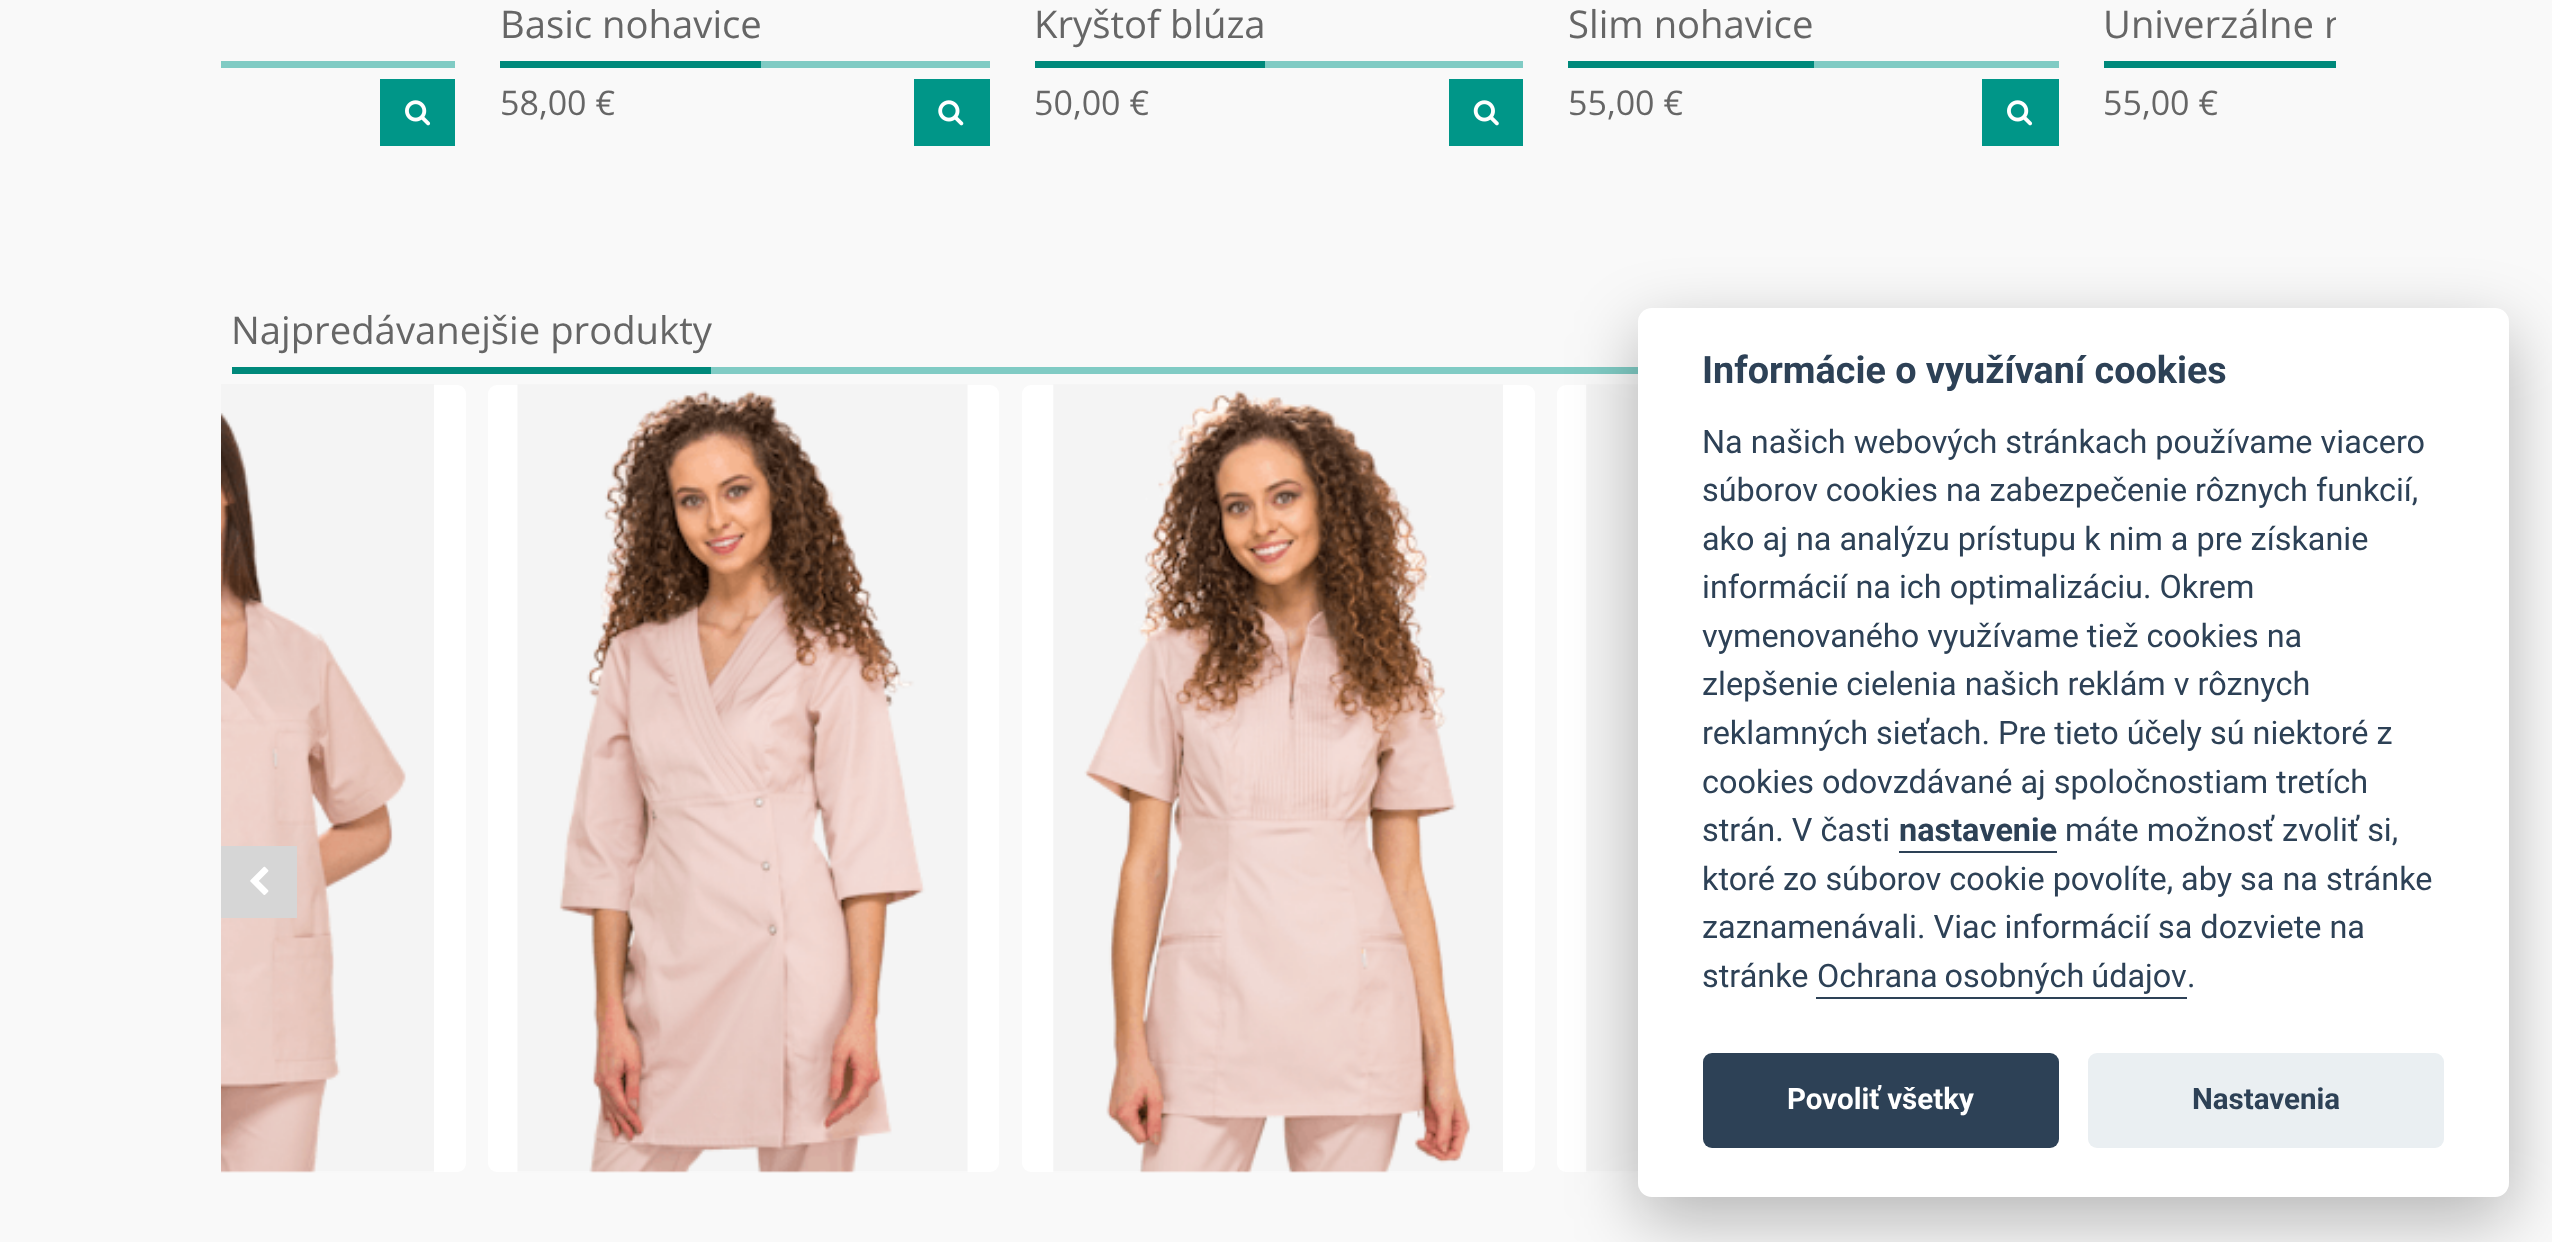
<svg xmlns="http://www.w3.org/2000/svg" width="2552" height="1242" viewBox="0 0 2552 1242">
  <defs>
    <clipPath id="clip1"><path d="M2104 0h232v61H2104z"/></clipPath>
  </defs>
  <rect width="100%" height="100%" fill="#f9f9f9"/>
  <path d="M221 61h234v7H221z" fill="#80cbc4"/>
  <path d="M380 79h75v67H380z" fill="#009688"/>
  <image x="405" y="100" width="26" height="26" href="img/1.png"/>
  <path d="M761 61h229v7H761z" fill="#80cbc4"/>
  <path d="M500 61h261v7H500z" fill="#00897b"/>
  <path d="M914 79h76v67H914z" fill="#009688"/>
  <image x="938" y="100" width="26" height="26" href="img/2.png"/>
  <path d="M1265 61h258v7H1265z" fill="#80cbc4"/>
  <path d="M1035 61h230v7H1035z" fill="#00897b"/>
  <path d="M1449 79h74v67H1449z" fill="#009688"/>
  <image x="1473" y="100" width="26" height="26" href="img/3.png"/>
  <path d="M1814 61h245v7H1814z" fill="#80cbc4"/>
  <path d="M1568 61h246v7H1568z" fill="#00897b"/>
  <path d="M1982 79h77v67H1982z" fill="#009688"/>
  <image x="2007" y="100" width="26" height="26" href="img/1.png"/>
  <path d="M2104 61h232v7H2104z" fill="#00897b"/>
  <path d="M711 367h927v7H711z" fill="#80cbc4"/>
  <path d="M232 367h479v7H232z" fill="#00897b"/>
  <path d="M221 385H457C462 385 466 389 466 394V1163C466 1168 462 1172 457 1172H221Z" fill="#fff"/>
  <image x="221" y="384" width="213" height="789" href="img/4.png"/>
  <rect x="488" y="385" width="511" height="787" rx="9" fill="#fff"/>
  <image x="517" y="384" width="451" height="789" href="img/5.png"/>
  <rect x="1022" y="385" width="513" height="787" rx="9" fill="#fff"/>
  <image x="1053" y="384" width="450" height="789" href="img/6.png"/>
  <rect x="1557" y="385" width="511" height="787" rx="9" fill="#fff"/>
  <image x="1586" y="384" width="52" height="789" href="img/7.png"/>
  <path d="M221 846h76v72H221z" fill="#d6d6d6"/>
  <image x="250" y="866" width="19" height="29" href="img/8.png"/>
  <rect x="1638" y="331" width="871" height="889" rx="14" fill="#02020347" filter="blur(34px)"/>
  <rect x="1638" y="308" width="871" height="889" rx="14" fill="#fff"/>
  <path d="M1899 851h158v2H1899z" fill="#2d4156"/>
  <path d="M1816 997h371v2H1816z" fill="#2d4156"/>
  <rect x="1703" y="1053" width="356" height="95" rx="9" fill="#2d4156"/>
  <rect x="2088" y="1053" width="356" height="95" rx="9" fill="#eaeff2"/>
  <text x="500" y="38" font-family="Open Sans" font-size="38.25" fill="#666">Basic nohavice</text>
  <text x="500" y="115" font-family="Open Sans" font-size="34" fill="#666">58,00 €</text>
  <text x="1034" y="38" font-family="Open Sans" font-size="38.25" fill="#666">Kryštof blúza</text>
  <text x="1034" y="115" font-family="Open Sans" font-size="34" fill="#666">50,00 €</text>
  <text x="1568" y="38" font-family="Open Sans" font-size="38.25" fill="#666">Slim nohavice</text>
  <text x="1568" y="115" font-family="Open Sans" font-size="34" fill="#666">55,00 €</text>
  <g clip-path="url(#clip1)">
    <text x="2103" y="38" font-family="Open Sans" font-size="38.25" fill="#666">Univerzálne n</text>
  </g>
  <text x="2103" y="115" font-family="Open Sans" font-size="34" fill="#666">55,00 €</text>
  <text x="231" y="344" font-family="Open Sans" font-size="38.25" fill="#666">Najpredávanejšie produkty</text>
  <text x="1702" y="383" font-family="Roboto" font-size="37.75" font-weight="bold" fill="#2d4156">Informácie o využívaní cookies</text>
  <g font-family="Roboto" font-size="32.4" fill="#2d4156">
    <text x="1702" y="453">Na našich webových stránkach používame viacero</text>
    <text x="1702" y="501">súborov cookies na zabezpečenie rôznych funkcií,</text>
    <text x="1702" y="550">ako aj na analýzu prístupu k nim a pre získanie</text>
    <text x="1702" y="598">informácií na ich optimalizáciu. Okrem</text>
    <text x="1702" y="647">vymenovaného využívame tiež cookies na</text>
    <text x="1702" y="695">zlepšenie cielenia našich reklám v rôznych</text>
    <text x="1702" y="744">reklamných sieťach. Pre tieto účely sú niektoré z</text>
    <text x="1702" y="793">cookies odovzdávané aj spoločnostiam tretích</text>
    <text x="1702" y="841">strán. V časti</text>
  </g>
  <text x="1899" y="841" font-family="Roboto" font-size="32.4" font-weight="bold" fill="#2d4156">nastavenie</text>
  <g font-family="Roboto" font-size="32.4" fill="#2d4156">
    <text x="2065" y="841">máte možnosť zvoliť si,</text>
    <text x="1702" y="890">ktoré zo súborov cookie povolíte, aby sa na stránke</text>
    <text x="1702" y="938">zaznamenávali. Viac informácií sa dozviete na</text>
    <text x="1702" y="987">stránke</text>
    <text x="1817" y="987" word-spacing="-1">Ochrana osobných údajov</text>
    <text x="2187" y="987">.</text>
  </g>
  <text x="1787" y="1109" font-family="Roboto" font-size="29.5" font-weight="bold" fill="#fff">Povoliť všetky</text>
  <text x="2192" y="1109" font-family="Roboto" font-size="29.5" font-weight="bold" fill="#2d4156">Nastavenia</text>
</svg>
